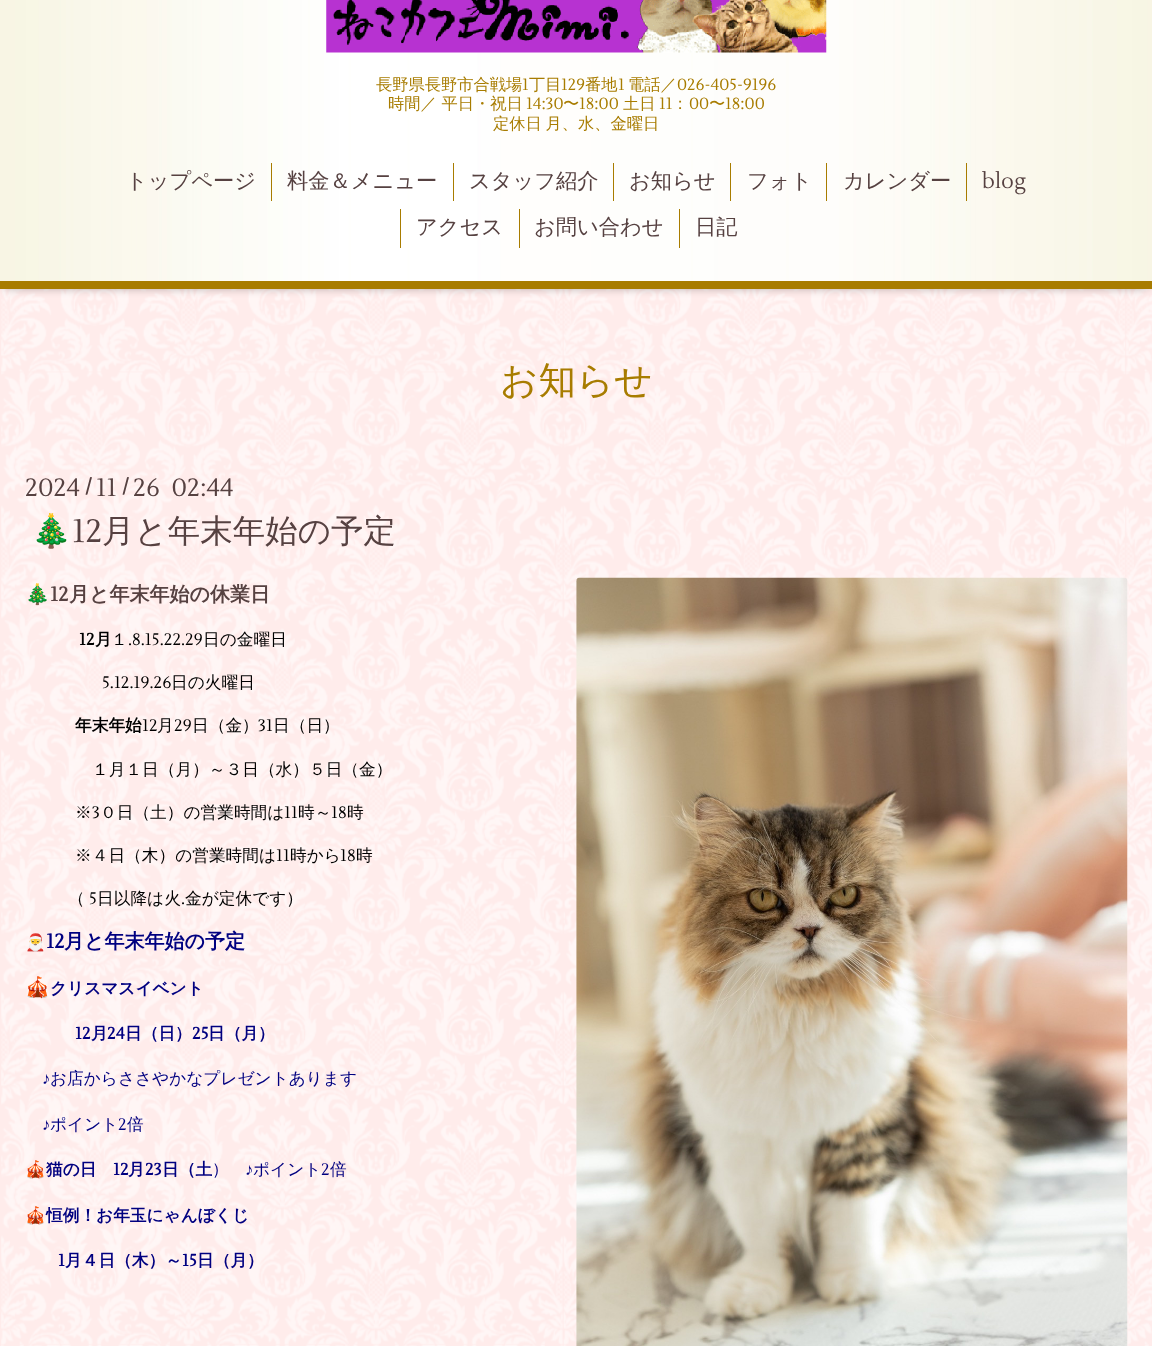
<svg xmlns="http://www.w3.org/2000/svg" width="1152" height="1346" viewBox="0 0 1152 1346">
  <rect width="100%" height="100%" fill="#ffeceb"/>
  <image x="1" y="289" width="1151" height="1057" href="img/1.png"/>
  <path d="M5 -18h1143v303H5z" fill="#00000099" filter="blur(6px)"/>
  <image x="0" y="0" width="1152" height="281" href="img/2.png"/>
  <path d="M0 281h1152v8H0z" fill="#a87c00"/>
  <image x="326" y="0" width="501" height="53" href="img/3.png"/>
  <path d="M271 163h1v38H271z" fill="#a87c00"/>
  <path d="M453 163h1v38H453z" fill="#a87c00"/>
  <path d="M613 163h1v38H613z" fill="#a87c00"/>
  <path d="M730 163h1v38H730z" fill="#a87c00"/>
  <path d="M826 163h1v38H826z" fill="#a87c00"/>
  <path d="M966 163h1v38H966z" fill="#a87c00"/>
  <path d="M400 209h1v39H400z" fill="#a87c00"/>
  <path d="M519 209h1v39H519z" fill="#a87c00"/>
  <path d="M679 209h1v39H679z" fill="#a87c00"/>
  <image x="576" y="577" width="552" height="769" href="img/4.png"/>
  <text x="376" y="90" font-family="WenQuanYi Zen Hei" font-size="16.25" font-weight="500" fill="#a87c00">長野県長野市合戦場</text>
  <text x="522" y="90" font-family="Lustria" font-size="16.25" fill="#a87c00">1</text>
  <text x="529" y="90" font-family="WenQuanYi Zen Hei" font-size="16.25" font-weight="500" fill="#a87c00">丁目</text>
  <text x="561" y="90" font-family="Lustria" font-size="16.25" fill="#a87c00">129</text>
  <text x="585" y="90" font-family="WenQuanYi Zen Hei" font-size="16.25" font-weight="500" fill="#a87c00">番地</text>
  <text x="618" y="90" font-family="Lustria" font-size="16.25" fill="#a87c00">1</text>
  <text x="628" y="90" font-family="WenQuanYi Zen Hei" font-size="16.25" font-weight="500" fill="#a87c00">電話／</text>
  <text x="677" y="90" font-family="Lustria" font-size="16.25" fill="#a87c00">026-405-9196</text>
  <text x="388" y="109" font-family="WenQuanYi Zen Hei" font-size="16.25" font-weight="500" fill="#a87c00">時間／ 平日・祝日</text>
  <text x="526" y="109" font-family="Lustria" font-size="16.25" fill="#a87c00">14:30</text>
  <text x="563" y="109" font-family="WenQuanYi Zen Hei" font-size="16.25" font-weight="500" fill="#a87c00">〜</text>
  <text x="579" y="109" font-family="Lustria" font-size="16.25" fill="#a87c00">18:00</text>
  <text x="623" y="109" font-family="WenQuanYi Zen Hei" font-size="16.25" font-weight="500" fill="#a87c00">土日</text>
  <text x="659" y="109" font-family="Lustria" font-size="16.25" fill="#a87c00">11</text>
  <text x="672" y="109" font-family="WenQuanYi Zen Hei" font-size="16.25" font-weight="500" fill="#a87c00">：</text>
  <text x="689" y="109" font-family="Lustria" font-size="16.25" fill="#a87c00">00</text>
  <text x="709" y="109" font-family="WenQuanYi Zen Hei" font-size="16.25" font-weight="500" fill="#a87c00">〜</text>
  <text x="725" y="109" font-family="Lustria" font-size="16.25" fill="#a87c00">18:00</text>
  <text x="493" y="129" word-spacing="-1" font-family="WenQuanYi Zen Hei" font-size="16.25" font-weight="500" fill="#a87c00">定休日 月、水、金曜日</text>
  <g font-family="WenQuanYi Zen Hei" font-size="21.25" font-weight="500" fill="#564141">
    <text x="126" y="188">トップページ</text>
    <text x="287" y="188">料金＆メニュー</text>
    <text x="469" y="188">スタッフ紹介</text>
    <text x="629" y="188">お知らせ</text>
    <text x="747" y="188">フォト</text>
    <text x="843" y="188">カレンダー</text>
  </g>
  <text x="982" y="188" font-family="Lustria" font-size="21.25" fill="#564141">blog</text>
  <g font-family="WenQuanYi Zen Hei" font-size="21.25" font-weight="500" fill="#564141">
    <text x="416" y="234">アクセス</text>
    <text x="534" y="234">お問い合わせ</text>
    <text x="695" y="234">日記</text>
  </g>
  <text x="500" y="393" font-family="WenQuanYi Zen Hei" font-size="37.5" font-weight="500" fill="#a87c00">お知らせ</text>
  <text x="25" y="496" font-family="Lustria" font-size="25" fill="#564141">2024</text>
  <text x="85" y="493" font-family="Lustria" font-size="20" font-weight="bold" fill="#564141">/</text>
  <text x="96" y="496" font-family="Lustria" font-size="25" fill="#564141">11</text>
  <text x="122" y="493" font-family="Lustria" font-size="20" font-weight="bold" fill="#564141">/</text>
  <text x="133" y="496" font-family="Lustria" font-size="25" fill="#564141" xml:space="preserve">26  02:44</text>
  <text x="31" y="542" font-family="Noto Color Emoji" font-size="32.5" fill="#564141">🎄</text>
  <text x="72" y="542" font-family="Lustria" font-size="32.5" fill="#564141">12</text>
  <text x="102" y="542" font-family="WenQuanYi Zen Hei" font-size="32.5" font-weight="500" fill="#564141">月と年末年始の予定</text>
  <text x="25" y="601" font-family="Noto Color Emoji" font-size="20" font-weight="bold" fill="#564141">🎄</text>
  <text x="50" y="601" font-family="Lustria" font-size="20" font-weight="bold" fill="#564141">12</text>
  <text x="69" y="601" font-family="WenQuanYi Zen Hei" font-size="20" font-weight="bold" fill="#564141">月と年末年始の休業日</text>
  <text x="79" y="645" font-family="Lustria" font-size="16.7" font-weight="bold" fill="#000">12</text>
  <text x="95" y="645" font-family="WenQuanYi Zen Hei" font-size="16.7" font-weight="bold" fill="#000">月</text>
  <text x="111" y="645" font-family="WenQuanYi Zen Hei" font-size="16.7" font-weight="500" fill="#000">１</text>
  <text x="128" y="645" font-family="Lustria" font-size="16.7" fill="#000">.8.15.22.29</text>
  <text x="203" y="645" font-family="WenQuanYi Zen Hei" font-size="16.7" font-weight="500" fill="#000">日の金曜日</text>
  <text x="102" y="688" font-family="Lustria" font-size="16.7" fill="#000">5.12.19.26</text>
  <text x="171" y="688" font-family="WenQuanYi Zen Hei" font-size="16.7" font-weight="500" fill="#000">日の火曜日</text>
  <text x="75" y="731" font-family="WenQuanYi Zen Hei" font-size="16.7" font-weight="bold" fill="#000">年末年始</text>
  <text x="142" y="731" font-family="Lustria" font-size="16.7" fill="#000">12</text>
  <text x="157" y="731" font-family="WenQuanYi Zen Hei" font-size="16.7" font-weight="500" fill="#000">月</text>
  <text x="174" y="731" font-family="Lustria" font-size="16.7" fill="#000">29</text>
  <text x="192" y="731" font-family="WenQuanYi Zen Hei" font-size="16.7" font-weight="500" fill="#000">日（金）</text>
  <text x="258" y="731" font-family="Lustria" font-size="16.7" fill="#000">31</text>
  <g font-family="WenQuanYi Zen Hei" font-size="16.7" font-weight="500" fill="#000">
    <text x="273" y="731">日（日）</text>
    <text x="92" y="775">１月１日（月）～３日（水）５日（金）</text>
    <text x="75" y="818">※</text>
  </g>
  <text x="92" y="818" font-family="Lustria" font-size="16.7" fill="#000">3</text>
  <text x="100" y="818" font-family="WenQuanYi Zen Hei" font-size="16.7" font-weight="500" fill="#000">０日（土）の営業時間は</text>
  <text x="284" y="818" font-family="Lustria" font-size="16.7" fill="#000">11</text>
  <text x="298" y="818" font-family="WenQuanYi Zen Hei" font-size="16.7" font-weight="500" fill="#000">時～</text>
  <text x="331" y="818" font-family="Lustria" font-size="16.7" fill="#000">18</text>
  <g font-family="WenQuanYi Zen Hei" font-size="16.7" font-weight="500" fill="#000">
    <text x="347" y="818">時</text>
    <text x="75" y="861">※４日（木）の営業時間は</text>
  </g>
  <text x="276" y="861" font-family="Lustria" font-size="16.7" fill="#000">11</text>
  <text x="290" y="861" font-family="WenQuanYi Zen Hei" font-size="16.7" font-weight="500" fill="#000">時から</text>
  <text x="340" y="861" font-family="Lustria" font-size="16.7" fill="#000">18</text>
  <g font-family="WenQuanYi Zen Hei" font-size="16.7" font-weight="500" fill="#000">
    <text x="356" y="861">時</text>
    <text x="68" y="904">（</text>
  </g>
  <text x="89" y="904" font-family="Lustria" font-size="16.7" fill="#000">5</text>
  <text x="97" y="904" font-family="WenQuanYi Zen Hei" font-size="16.7" font-weight="500" fill="#000">日以降は火</text>
  <text x="181" y="904" font-family="Lustria" font-size="16.7" fill="#000">.</text>
  <text x="185" y="904" font-family="WenQuanYi Zen Hei" font-size="16.7" font-weight="500" fill="#000">金が定休です）</text>
  <text x="25" y="948" font-family="Noto Color Emoji" font-size="16.7" fill="#000080">🎅</text>
  <text x="46" y="948" font-family="Lustria" font-size="20" font-weight="bold" fill="#000080">12</text>
  <text x="64" y="948" font-family="WenQuanYi Zen Hei" font-size="20" font-weight="bold" fill="#000080">月と年末年始の予定</text>
  <text x="25" y="994" font-family="Noto Color Emoji" font-size="20" font-weight="bold" fill="#000080">🎪</text>
  <text x="50" y="994" font-family="WenQuanYi Zen Hei" font-size="16.7" font-weight="bold" fill="#000080">クリスマスイベント</text>
  <text x="75" y="1039" font-family="Lustria" font-size="16.7" font-weight="bold" fill="#000080">12</text>
  <text x="91" y="1039" font-family="WenQuanYi Zen Hei" font-size="16.7" font-weight="bold" fill="#000080">月</text>
  <text x="107" y="1039" font-family="Lustria" font-size="16.7" font-weight="bold" fill="#000080">24</text>
  <text x="125" y="1039" font-family="WenQuanYi Zen Hei" font-size="16.7" font-weight="bold" fill="#000080">日（日）</text>
  <text x="192" y="1039" font-family="Lustria" font-size="16.7" font-weight="bold" fill="#000080">25</text>
  <text x="208" y="1039" font-family="WenQuanYi Zen Hei" font-size="16.7" font-weight="bold" fill="#000080">日（月）</text>
  <text x="42" y="1084" font-family="Liberation Sans" font-size="16.7" fill="#000080">♪</text>
  <text x="50" y="1084" font-family="WenQuanYi Zen Hei" font-size="16.7" font-weight="500" fill="#000080">お店からささやかなプレゼントあります</text>
  <text x="42" y="1130" font-family="Liberation Sans" font-size="16.7" fill="#000080">♪</text>
  <text x="50" y="1130" font-family="WenQuanYi Zen Hei" font-size="16.7" font-weight="500" fill="#000080">ポイント</text>
  <text x="118" y="1130" font-family="Lustria" font-size="16.7" fill="#000080">2</text>
  <text x="127" y="1130" font-family="WenQuanYi Zen Hei" font-size="16.7" font-weight="500" fill="#000080">倍</text>
  <text x="25" y="1175" font-family="Noto Color Emoji" font-size="16.7" fill="#000080">🎪</text>
  <text x="46" y="1175" font-family="WenQuanYi Zen Hei" font-size="16.7" font-weight="bold" fill="#000080">猫の日</text>
  <text x="113" y="1175" font-family="Lustria" font-size="16.7" font-weight="bold" fill="#000080">12</text>
  <text x="128" y="1175" font-family="WenQuanYi Zen Hei" font-size="16.7" font-weight="bold" fill="#000080">月</text>
  <text x="145" y="1175" font-family="Lustria" font-size="16.7" font-weight="bold" fill="#000080">23</text>
  <text x="162" y="1175" font-family="WenQuanYi Zen Hei" font-size="16.7" font-weight="bold" fill="#000080">日（土</text>
  <text x="212" y="1175" font-family="WenQuanYi Zen Hei" font-size="16.7" font-weight="500" fill="#000080">）</text>
  <text x="245" y="1175" font-family="Liberation Sans" font-size="16.7" fill="#000080">♪</text>
  <text x="253" y="1175" font-family="WenQuanYi Zen Hei" font-size="16.7" font-weight="500" fill="#000080">ポイント</text>
  <text x="321" y="1175" font-family="Lustria" font-size="16.7" fill="#000080">2</text>
  <text x="330" y="1175" font-family="WenQuanYi Zen Hei" font-size="16.7" font-weight="500" fill="#000080">倍</text>
  <text x="25" y="1221" font-family="Noto Color Emoji" font-size="16.7" fill="#000080">🎪</text>
  <text x="46" y="1221" font-family="WenQuanYi Zen Hei" font-size="16.7" font-weight="bold" fill="#000080">恒例！お年玉にゃんぼくじ</text>
  <text x="58" y="1266" font-family="Lustria" font-size="16.7" font-weight="bold" fill="#000080">1</text>
  <text x="65" y="1266" font-family="WenQuanYi Zen Hei" font-size="16.7" font-weight="bold" fill="#000080">月４日（木）～</text>
  <text x="182" y="1266" font-family="Lustria" font-size="16.7" font-weight="bold" fill="#000080">15</text>
  <text x="197" y="1266" font-family="WenQuanYi Zen Hei" font-size="16.7" font-weight="bold" fill="#000080">日（月）</text>
</svg>
